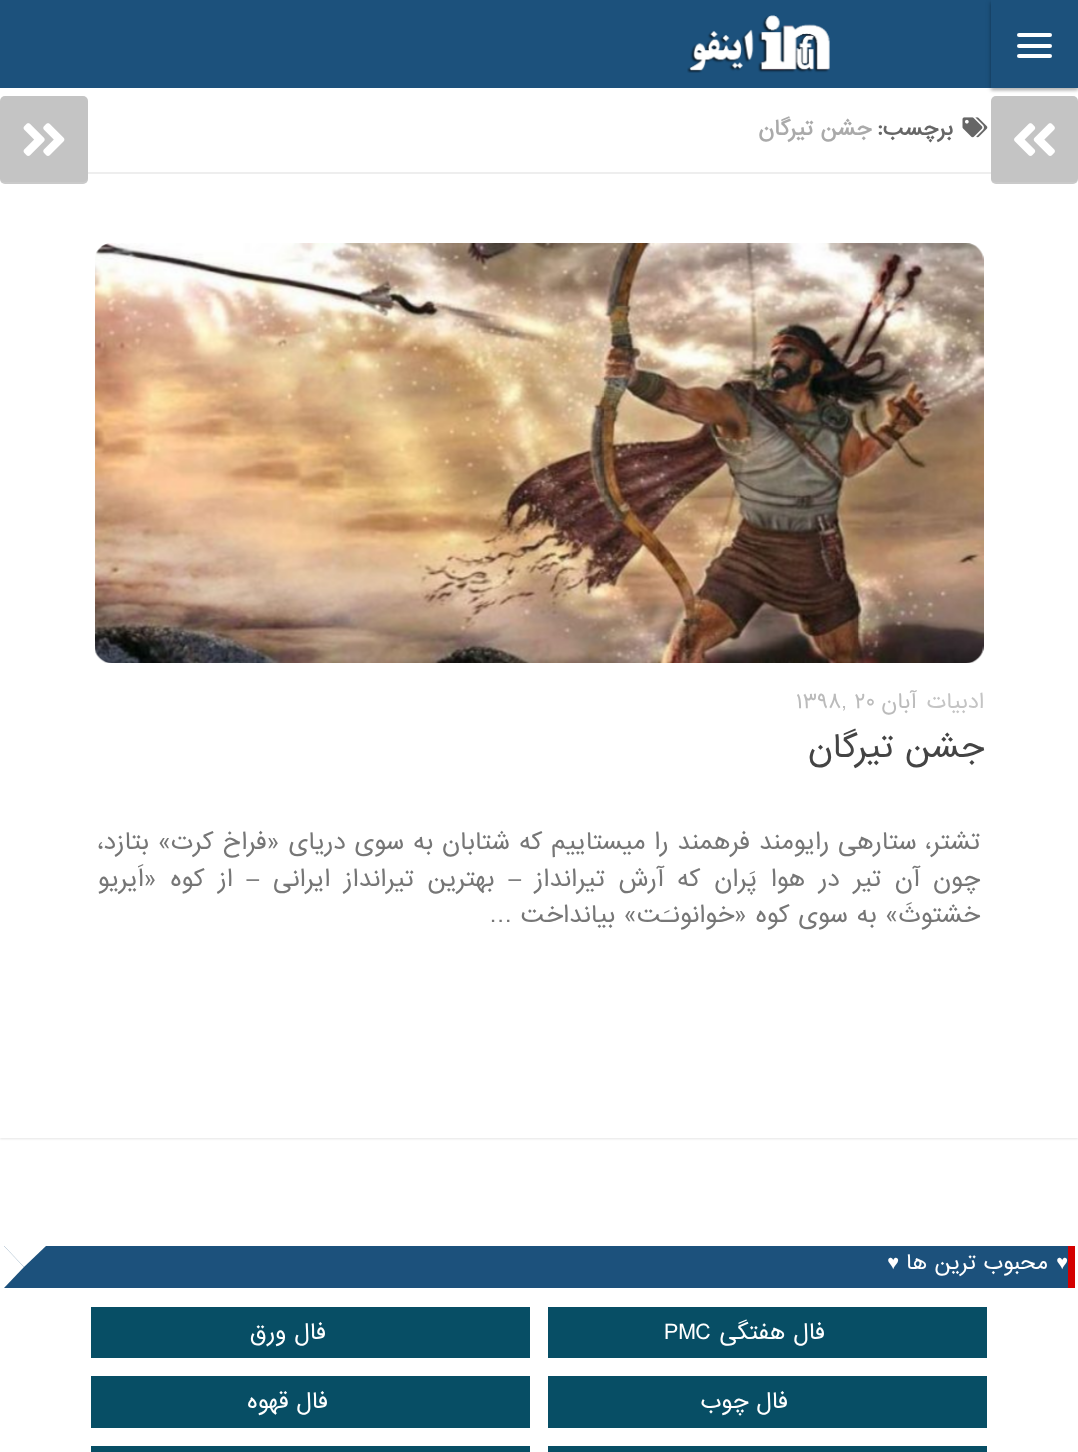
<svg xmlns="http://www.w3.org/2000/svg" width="1078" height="1452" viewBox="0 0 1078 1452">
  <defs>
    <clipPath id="clip1"><path d="M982 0H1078V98H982ZM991 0H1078V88H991Z" clip-rule="evenodd"/></clipPath>
    <clipPath id="clip2"><path d="M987 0H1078V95H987ZM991 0H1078V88H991Z" clip-rule="evenodd"/></clipPath>
  </defs>
  <rect width="100%" height="100%" fill="#fff"/>
  <path d="M0 89h1078v1050H0z" fill="#0000001a" filter="blur(1px)"/>
  <path d="M0 0h1078v88H0z" fill="#1c517c"/>
  <path d="M0 88h1078v1050H0z" fill="#fff"/>
  <rect x="991" y="96" width="87" height="88" rx="5" fill="#c4c4c4"/>
  <g clip-path="url(#clip1)">
    <path d="M991 2h87v87H991z" fill="#0000004d" filter="blur(2.5px)"/>
  </g>
  <g clip-path="url(#clip2)">
    <path d="M991 4h87v87H991z" fill="#0000001a" filter="blur(1px)"/>
  </g>
  <rect x="1017" y="33" width="35" height="4" rx="2" fill="#fff"/>
  <rect x="1017" y="44" width="35" height="4" rx="2" fill="#fff"/>
  <rect x="1017" y="54" width="35" height="4" rx="2" fill="#fff"/>
  <image x="687" y="15" width="143" height="58" href="img/1.png"/>
  <path d="M991 180C991 182 994 184 996 184H1073C1076 184 1078 182 1078 179V177C1078 180 1076 182 1073 182H996C994 182 992 181 991 180Z" fill="#ffffff1a"/>
  <image x="1014" y="123" width="41" height="33" href="img/2.png"/>
  <path d="M88 172h903v2H88z" fill="#eee"/>
  <image x="962" y="117" width="26" height="21" href="img/3.png"/>
  <image x="95" y="243" width="889" height="420" href="img/4.png"/>
  <rect y="96" width="88" height="88" rx="5" fill="#c4c4c4"/>
  <path d="M0 177C0 187 10 184 18 184H70C78 184 88 187 88 177C88 180 85 182 82 182H5C2 182 0 180 0 177Z" fill="#ffffff1a"/>
  <image x="23" y="123" width="42" height="33" href="img/5.png"/>
  <path d="M4 1246h1064v42H4z" fill="#1c517c"/>
  <path d="M1068 1246h7v42H1068z" fill="#d40000"/>
  <path d="M4 1246H46L24 1267Z" fill="#fff"/>
  <path d="M4 1288V1246L24 1267Z" fill="#fff"/>
  <path d="M548 1307h439v51H548z" fill="#074e65"/>
  <path d="M91 1307h439v51H91z" fill="#074e65"/>
  <path d="M548 1376h439v52H548z" fill="#074e65"/>
  <path d="M91 1376h439v52H91z" fill="#074e65"/>
  <path d="M548 1446h439v6H548z" fill="#074e65"/>
  <path d="M91 1446h439v6H91z" fill="#074e65"/>
  <text x="953" y="135" font-family="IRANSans" font-size="20" font-weight="bold" direction="rtl" fill="#666">برچسب:</text>
  <text x="871" y="135" font-family="IRANSans" font-size="20" font-weight="bold" direction="rtl" fill="#aaa">جشن تیرگان</text>
  <text x="984" y="708" font-family="IRANSans" font-size="20" direction="rtl" fill="#c4c4c4">ادبیات</text>
  <text x="916" y="708" font-family="IRANSans" font-size="20" direction="rtl" fill="#bbb">آبان</text>
  <text x="796" y="708" font-family="IRANSans" font-size="20" fill="#bbb">۱۳۹۸, ۲۰</text>
  <text x="984" y="757" font-family="IRANSans" font-size="31.25" direction="rtl" fill="#444">جشن تیرگان</text>
  <g font-family="IRANSans" font-size="22.75" direction="rtl" fill="#767676">
    <text x="980" y="849" word-spacing="0.25">تشتر، ستارهی رایومند فرهمند را میستاییم که شتابان به سوی دریای «فراخ کرت» بتازد،</text>
    <text x="980" y="886" word-spacing="5.25">چون آن تیر در هوا پَران که آرش تیرانداز – بهترین تیرانداز ایرانی – از کوه «اَیریو</text>
    <text x="980" y="922">خشتوثَ» به سوی کوه «خوانونـَت» بیانداخت …</text>
  </g>
  <text x="1068" y="1269" font-family="Liberation Serif" font-size="20" direction="rtl" fill="#fff">♥</text>
  <text x="1048" y="1269" font-family="IRANSans" font-size="20" direction="rtl" fill="#fff">محبوب ترین ها</text>
  <text x="899" y="1269" font-family="Liberation Serif" font-size="20" direction="rtl" fill="#fff">♥</text>
  <text x="825" y="1339" font-family="IRANSans" font-size="21.25" direction="rtl" fill="#fff">فال هفتگی</text>
  <text x="664" y="1339" font-family="IRANSans" font-size="21.25" fill="#fff">PMC</text>
  <g font-family="IRANSans" font-size="21.25" direction="rtl" fill="#fff">
    <text x="326" y="1339">فال ورق</text>
    <text x="788" y="1408">فال چوب</text>
    <text x="328" y="1408">فال قهوه</text>
  </g>
</svg>
